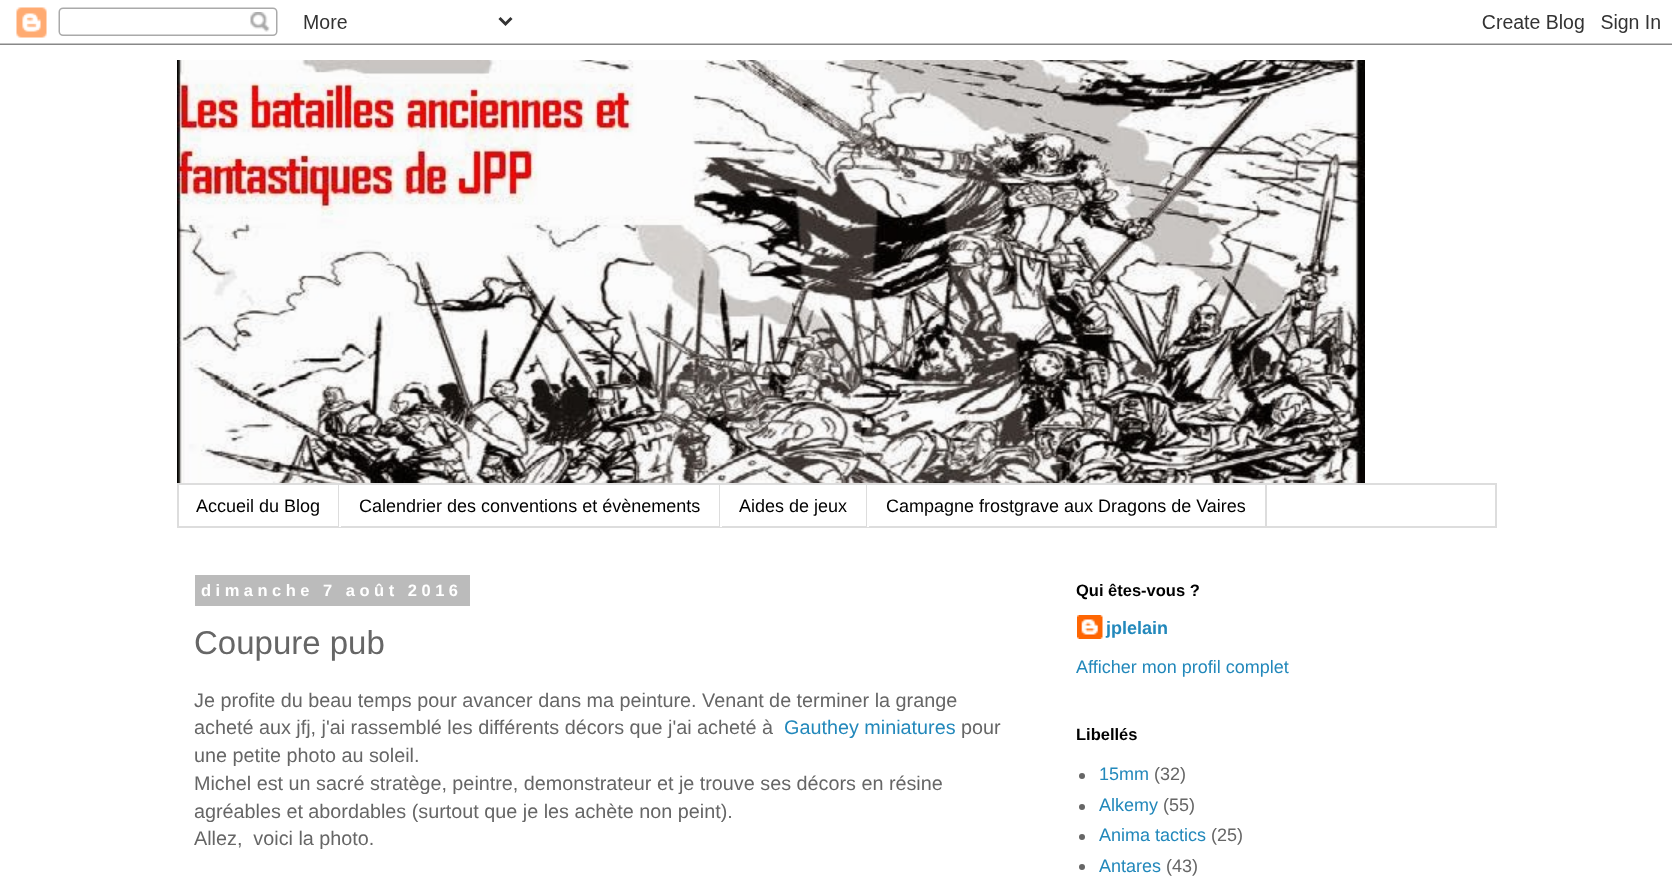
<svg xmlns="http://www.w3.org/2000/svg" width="1672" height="892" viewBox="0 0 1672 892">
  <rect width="100%" height="100%" fill="#fff"/>
  <image x="0" y="7" width="1672" height="38" href="img/1.png"/>
  <image x="177" y="60" width="1188" height="423" href="img/2.png"/>
  <path d="M178 484h1318v43H178z" fill="none" stroke="#ddd" stroke-width="2"/>
  <path d="M338 485h1v42H338z" fill="#ddd"/>
  <path d="M719 485h1v42H719z" fill="#ddd"/>
  <path d="M339 526h2v1H339z" fill="#fff"/>
  <path d="M866 485h1v42H866z" fill="#ddd"/>
  <path d="M720 526h2v1H720z" fill="#fff"/>
  <path d="M1265 485h2v42H1265z" fill="#ddd"/>
  <path d="M867 526h2v1H867z" fill="#fff"/>
  <path d="M195 575h275v31H195z" fill="#bbb"/>
  <image x="1077" y="615" width="26" height="24" href="img/3.png"/>
  <circle cx="1082" cy="776" r="3" fill="#666"/>
  <circle cx="1082" cy="807" r="3" fill="#666"/>
  <circle cx="1082" cy="837" r="3" fill="#666"/>
  <circle cx="1082" cy="867" r="3" fill="#666"/>
  <g font-family="Liberation Sans" font-size="18" fill="#000">
    <text x="196" y="512">Accueil du Blog</text>
    <text x="359" y="512">Calendrier des conventions et évènements</text>
    <text x="739" y="512">Aides de jeux</text>
    <text x="886" y="512">Campagne frostgrave aux Dragons de Vaires</text>
  </g>
  <text x="201" y="596" font-family="Liberation Sans" font-size="16.5" font-weight="bold" letter-spacing="4.5" fill="#fff">dimanche 7 août 2016</text>
  <text x="194" y="654" font-family="Liberation Sans" font-size="33" fill="#666">Coupure pub</text>
  <g font-family="Liberation Sans" font-size="19.8" fill="#666">
    <text x="194" y="707">Je profite du beau temps pour avancer dans ma peinture. Venant de terminer la grange</text>
    <text x="194" y="734">acheté aux jfj, j'ai rassemblé les différents décors que j'ai acheté à</text>
  </g>
  <text x="784" y="734" font-family="Liberation Sans" font-size="19.8" fill="#28b">Gauthey miniatures</text>
  <g font-family="Liberation Sans" font-size="19.8" fill="#666">
    <text x="961" y="734">pour</text>
    <text x="194" y="762">une petite photo au soleil.</text>
    <text x="194" y="790">Michel est un sacré stratège, peintre, demonstrateur et je trouve ses décors en résine</text>
    <text x="194" y="818">agréables et abordables (surtout que je les achète non peint).</text>
    <text x="194" y="845" xml:space="preserve">Allez,  voici la photo.</text>
  </g>
  <text x="1076" y="596" font-family="Liberation Sans" font-size="16.5" font-weight="bold" fill="#000">Qui êtes-vous ?</text>
  <text x="1106" y="634" font-family="Liberation Sans" font-size="18" font-weight="bold" fill="#28b">jplelain</text>
  <text x="1076" y="673" font-family="Liberation Sans" font-size="18" fill="#28b">Afficher mon profil complet</text>
  <text x="1076" y="740" font-family="Liberation Sans" font-size="16.5" font-weight="bold" fill="#000">Libellés</text>
  <text x="1099" y="780" font-family="Liberation Sans" font-size="18" fill="#28b">15mm</text>
  <text x="1154" y="780" font-family="Liberation Sans" font-size="18" fill="#666">(32)</text>
  <text x="1099" y="811" font-family="Liberation Sans" font-size="18" fill="#28b">Alkemy</text>
  <text x="1163" y="811" font-family="Liberation Sans" font-size="18" fill="#666">(55)</text>
  <text x="1099" y="841" font-family="Liberation Sans" font-size="18" fill="#28b">Anima tactics</text>
  <text x="1211" y="841" font-family="Liberation Sans" font-size="18" fill="#666">(25)</text>
  <text x="1099" y="872" font-family="Liberation Sans" font-size="18" fill="#28b">Antares</text>
  <text x="1166" y="872" font-family="Liberation Sans" font-size="18" fill="#666">(43)</text>
</svg>
